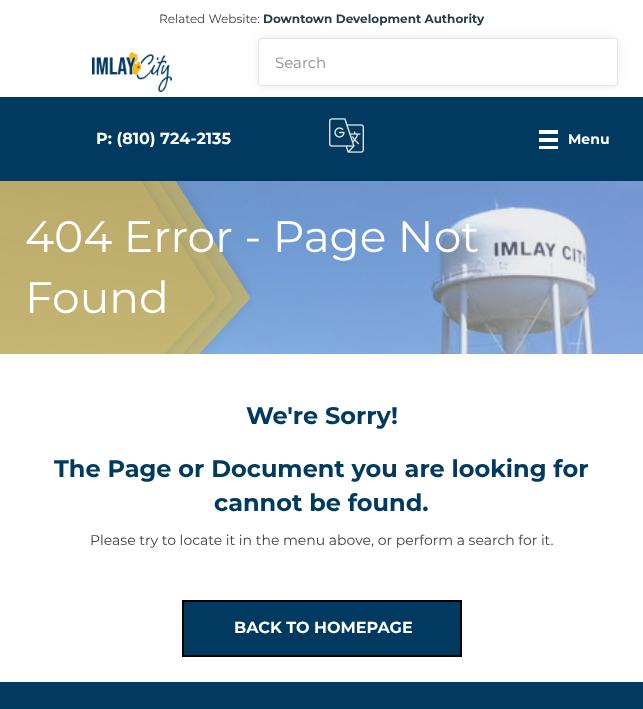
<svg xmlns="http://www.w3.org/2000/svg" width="643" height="709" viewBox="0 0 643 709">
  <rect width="100%" height="100%" fill="#fff"/>
  <image x="92" y="52" width="80" height="40" href="img/1.png"/>
  <path d="M0 97h643v84H0z" fill="#003a60"/>
  <rect x="258" y="38" width="360" height="48" rx="4" fill="#5c6a7226" filter="blur(5px)"/>
  <rect x="258.5" y="38.5" width="359" height="47" rx="3.5" fill="#fff" stroke="#e0e5ed"/>
  <path d="M571 39H614C615.5 39 617 40.5 617 42V82C617 83.5 615.5 85 614 85H571Z" fill="#fff"/>
  <image x="329" y="118" width="35" height="35" href="img/2.png"/>
  <path d="M539 130h19v4H539z" fill="#fff"/>
  <path d="M539 138h19v4H539z" fill="#fff"/>
  <path d="M539 146h19v3H539z" fill="#fff"/>
  <image x="0" y="181" width="643" height="173" href="img/4.png"/>
  <image x="0" y="181" width="252" height="173" href="img/3.png"/>
  <path d="M183 601h278v55H183z" fill="#003a60" stroke="#000" stroke-width="2"/>
  <path d="M0 682h643v27H0z" fill="#003a60"/>
  <text x="159" y="23" font-family="Montserrat" font-size="12" fill="#404040">Related Website:</text>
  <text x="263" y="23" font-family="Montserrat" font-size="12" font-weight="bold" fill="#273c4f">Downtown Development Authority</text>
  <text x="275" y="68" font-family="Montserrat" font-size="15" fill="#8c8c8c">Search</text>
  <text x="96" y="144" font-family="Montserrat" font-size="16" font-weight="bold" fill="#fff">P: (810) 724-2135</text>
  <text x="568" y="144" font-family="Montserrat" font-size="14" font-weight="bold" fill="#fff">Menu</text>
  <g font-family="Montserrat" font-size="44" fill="#fff">
    <text x="25" y="252">404 Error - Page Not</text>
    <text x="25" y="313">Found</text>
  </g>
  <g font-family="Montserrat" font-size="24" font-weight="bold" fill="#003a60">
    <text x="246" y="424">We're Sorry!</text>
    <text x="54" y="477">The Page or Document you are looking for</text>
    <text x="214" y="511">cannot be found.</text>
  </g>
  <text x="90" y="545" font-family="Montserrat" font-size="14" fill="#404040">Please try to locate it in the menu above, or perform a search for it.</text>
  <text x="234" y="633" font-family="Montserrat" font-size="16" font-weight="bold" fill="#fff">BACK TO HOMEPAGE</text>
</svg>
